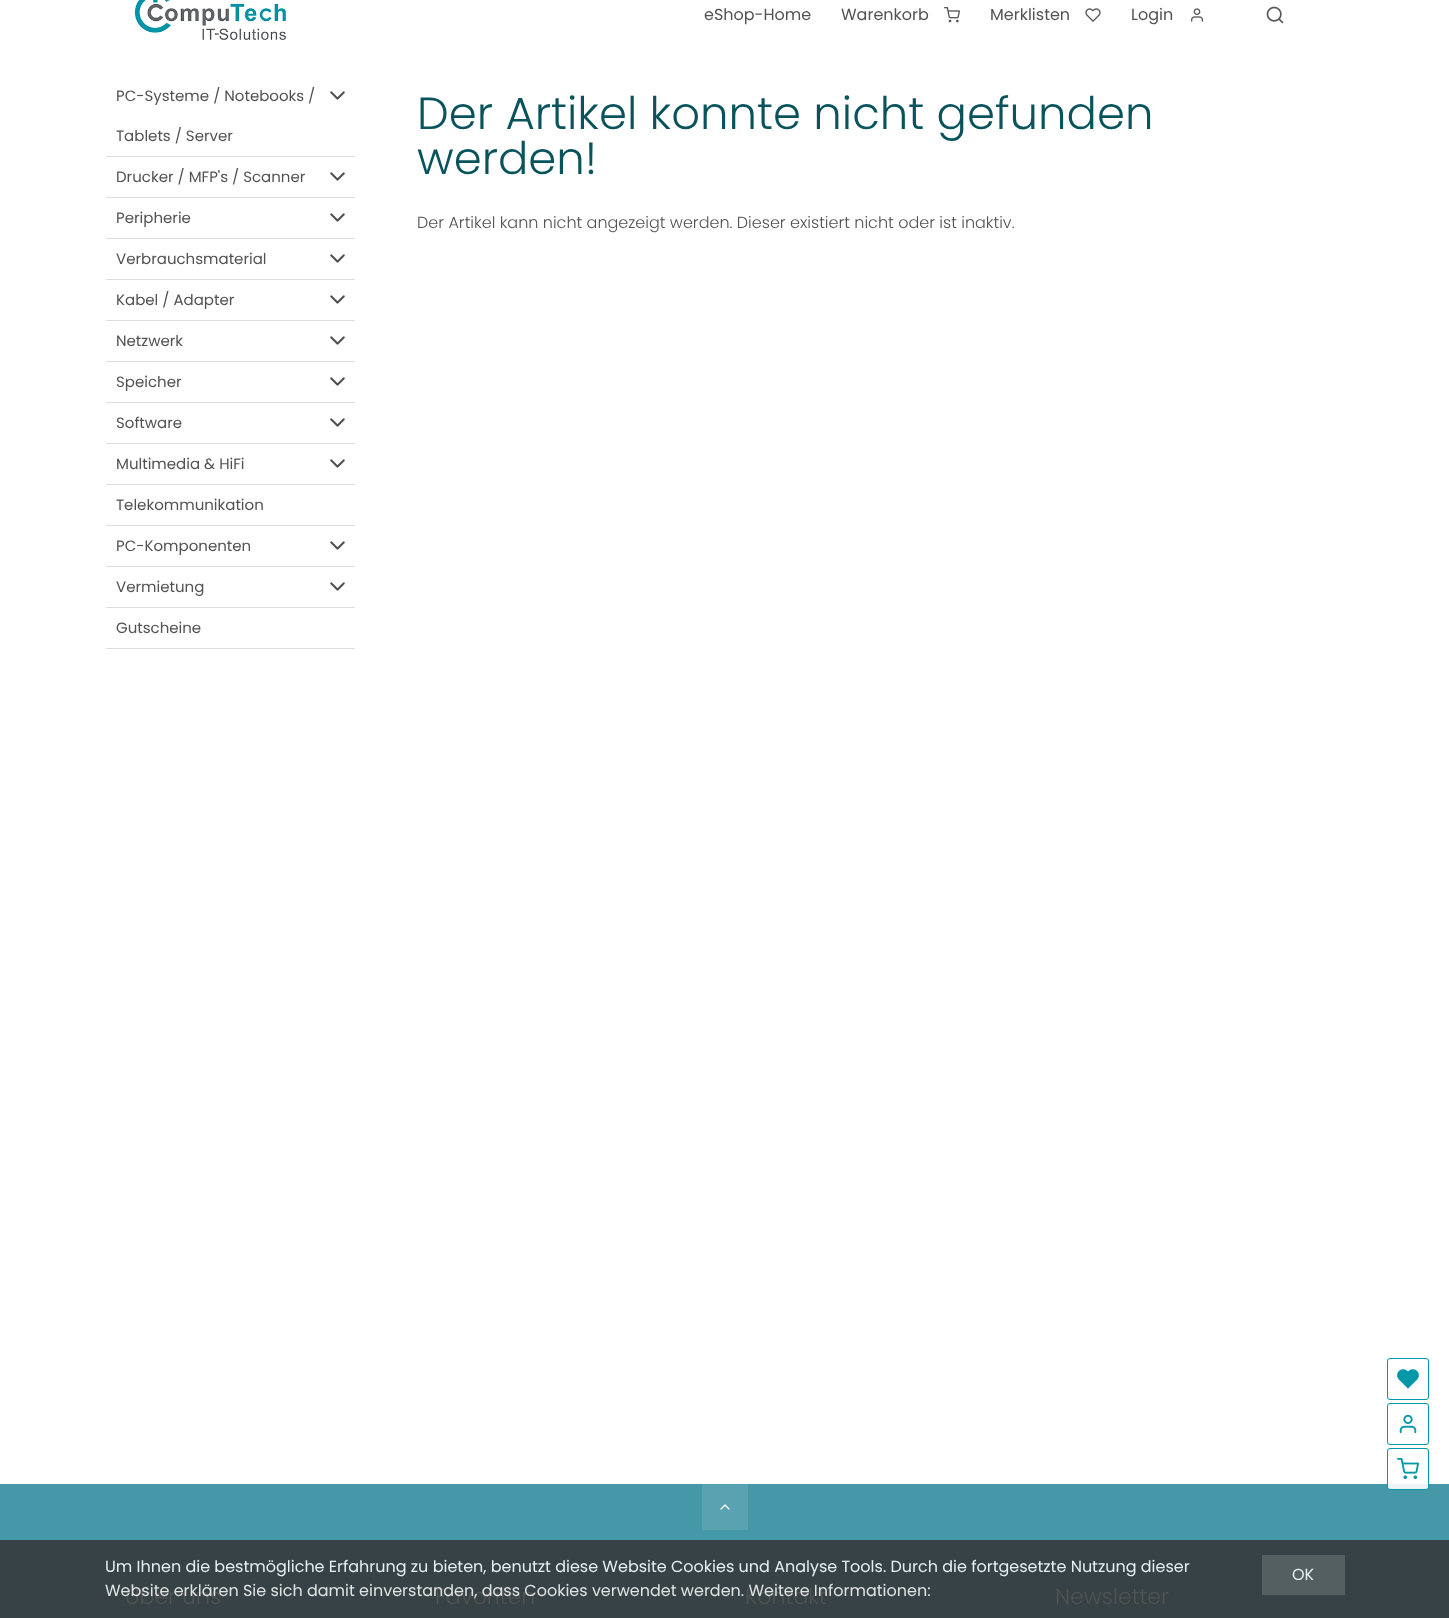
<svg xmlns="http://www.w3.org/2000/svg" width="1449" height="1618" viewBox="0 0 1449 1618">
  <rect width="100%" height="100%" fill="#fff"/>
  <image x="135" y="0" width="151" height="40" href="img/1.png"/>
  <image x="944" y="7" width="16" height="16" href="img/2.png"/>
  <image x="1085" y="8" width="16" height="14" href="img/3.png"/>
  <image x="1191" y="8" width="12" height="14" href="img/4.png"/>
  <image x="1266" y="6" width="18" height="18" href="img/5.png"/>
  <path d="M106 156h249v1H106z" fill="#ddd"/>
  <image x="330" y="91" width="15" height="9" href="img/6.png"/>
  <path d="M106 197h249v1H106z" fill="#ddd"/>
  <image x="330" y="172" width="15" height="9" href="img/6.png"/>
  <path d="M106 238h249v1H106z" fill="#ddd"/>
  <image x="330" y="213" width="15" height="9" href="img/6.png"/>
  <path d="M106 279h249v1H106z" fill="#ddd"/>
  <image x="330" y="254" width="15" height="9" href="img/6.png"/>
  <path d="M106 320h249v1H106z" fill="#ddd"/>
  <image x="330" y="295" width="15" height="9" href="img/6.png"/>
  <path d="M106 361h249v1H106z" fill="#ddd"/>
  <image x="330" y="336" width="15" height="9" href="img/6.png"/>
  <path d="M106 402h249v1H106z" fill="#ddd"/>
  <image x="330" y="377" width="15" height="9" href="img/6.png"/>
  <path d="M106 443h249v1H106z" fill="#ddd"/>
  <image x="330" y="418" width="15" height="9" href="img/6.png"/>
  <path d="M106 484h249v1H106z" fill="#ddd"/>
  <image x="330" y="459" width="15" height="9" href="img/6.png"/>
  <path d="M106 525h249v1H106z" fill="#ddd"/>
  <path d="M106 566h249v1H106z" fill="#ddd"/>
  <image x="330" y="541" width="15" height="9" href="img/6.png"/>
  <path d="M106 607h249v1H106z" fill="#ddd"/>
  <image x="330" y="582" width="15" height="9" href="img/6.png"/>
  <path d="M106 648h249v1H106z" fill="#ddd"/>
  <rect x="1387.5" y="1358.5" width="41" height="41" rx="2.5" fill="none" stroke="#0097a9"/>
  <image x="1397" y="1369" width="22" height="20" href="img/7.png"/>
  <rect x="1387.5" y="1403.5" width="41" height="41" rx="2.5" fill="none" stroke="#0097a9"/>
  <image x="1399" y="1414" width="18" height="20" href="img/8.png"/>
  <path d="M0 1484h1449v56H0z" fill="#4598a8"/>
  <rect x="1387.5" y="1448.5" width="41" height="41" rx="2.5" fill="#ffffffe6" stroke="#0097a9"/>
  <image x="1397" y="1458" width="22" height="22" href="img/9.png"/>
  <path d="M0 1540h1449v78H0z" fill="#364245"/>
  <path d="M1262 1555h83v40H1262z" fill="#535f61"/>
  <path d="M702 1484h46v46H702z" fill="#58a2b1"/>
  <image x="720" y="1504" width="10" height="6" href="img/10.png"/>
  <g font-family="Poppins" font-size="16" fill="#525252">
    <text x="704" y="20">eShop-Home</text>
    <text x="841" y="20">Warenkorb</text>
    <text x="990" y="20">Merklisten</text>
    <text x="1131" y="20">Login</text>
  </g>
  <g font-family="Poppins" font-size="15" fill="#525252">
    <text x="116" y="101">PC-Systeme / Notebooks /</text>
    <text x="116" y="141">Tablets / Server</text>
    <text x="116" y="182">Drucker / MFP's / Scanner</text>
    <text x="116" y="223">Peripherie</text>
    <text x="116" y="264">Verbrauchsmaterial</text>
    <text x="116" y="305">Kabel / Adapter</text>
    <text x="116" y="346">Netzwerk</text>
    <text x="116" y="387">Speicher</text>
    <text x="116" y="428">Software</text>
    <text x="116" y="469">Multimedia &amp; HiFi</text>
    <text x="116" y="510">Telekommunikation</text>
    <text x="116" y="551">PC-Komponenten</text>
    <text x="116" y="592">Vermietung</text>
    <text x="116" y="633">Gutscheine</text>
  </g>
  <g font-family="Poppins" font-size="45" font-weight="300" fill="#09545c">
    <text x="417" y="129">Der Artikel konnte nicht gefunden</text>
    <text x="417" y="174">werden!</text>
  </g>
  <text x="417" y="228" font-family="Poppins" font-size="16" font-weight="300" fill="#525252">Der Artikel kann nicht angezeigt werden. Dieser existiert nicht oder ist inaktiv.</text>
  <g font-family="Poppins" font-size="16" fill="#e3f0f2">
    <text x="105" y="1572">Um Ihnen die bestmögliche Erfahrung zu bieten, benutzt diese Website Cookies und Analyse Tools. Durch die fortgesetzte Nutzung dieser</text>
    <text x="1292" y="1580">OK</text>
  </g>
  <g font-family="Poppins" font-size="22" font-weight="300" fill="#525252">
    <text x="125" y="1604">Über uns</text>
    <text x="435" y="1604">Favoriten</text>
    <text x="745" y="1604">Kontakt</text>
  </g>
  <text x="105" y="1596" font-family="Poppins" font-size="16" fill="#e1e3e3">Website erklären Sie sich damit einverstanden, dass Cookies verwendet werden. Weitere Informationen:</text>
  <text x="1055" y="1604" font-family="Poppins" font-size="22" font-weight="300" fill="#525252">Newsletter</text>
</svg>
